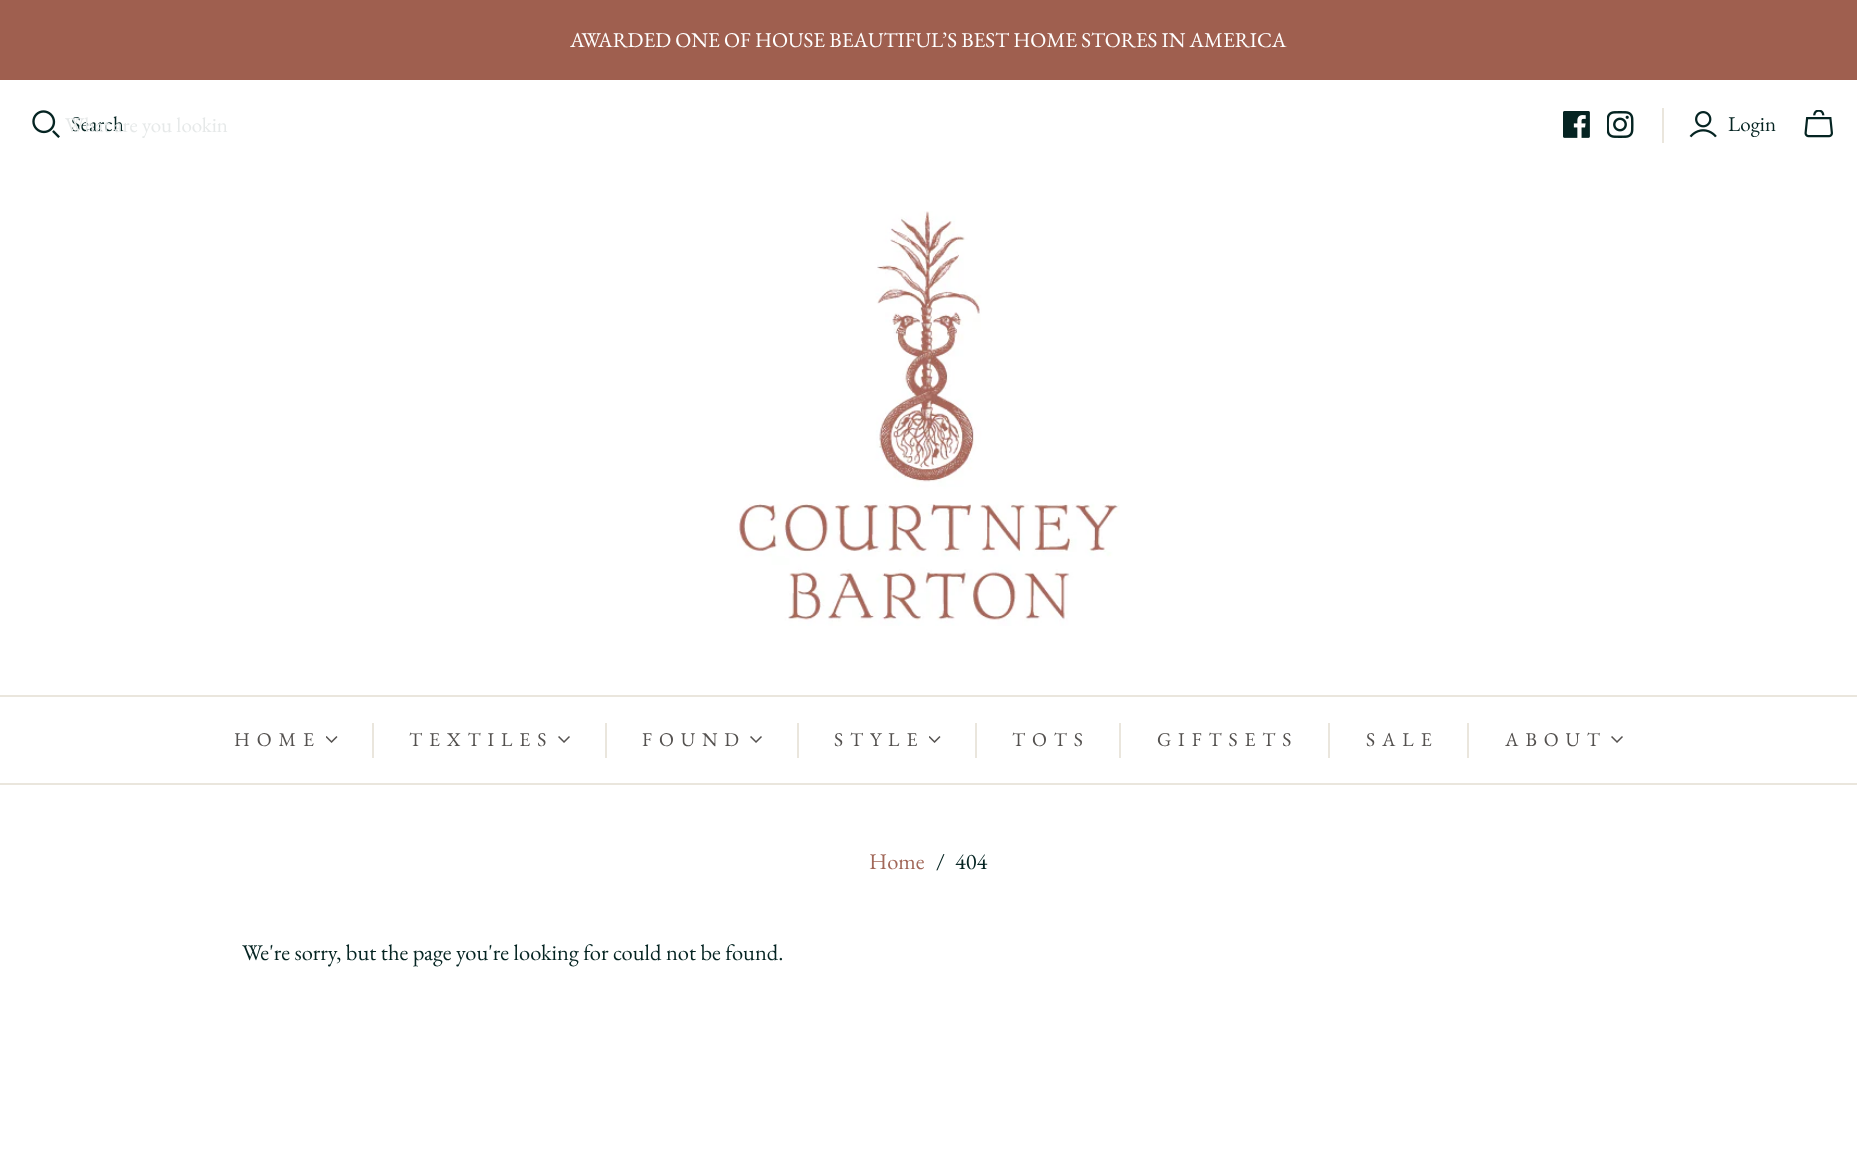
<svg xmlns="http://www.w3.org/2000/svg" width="1857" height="1156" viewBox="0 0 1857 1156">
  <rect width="100%" height="100%" fill="#fff"/>
  <path d="M0 0h1857v80H0z" fill="#9f5f4f"/>
  <image x="32" y="110" width="28" height="28" href="img/1.png"/>
  <image x="1563" y="111" width="27" height="27" href="img/2.png"/>
  <image x="1607" y="111" width="27" height="27" href="img/3.png"/>
  <path d="M1662 108h2v35H1662z" fill="#eae6dd"/>
  <image x="1689" y="111" width="28" height="27" href="img/4.png"/>
  <image x="1804" y="110" width="29" height="28" href="img/5.png"/>
  <image x="737" y="211" width="383" height="415" href="img/6.png"/>
  <path d="M0 695h1857v2H0z" fill="#eae6dd"/>
  <path d="M0 783h1857v2H0z" fill="#eae6dd"/>
  <image x="326" y="736" width="12" height="7" href="img/7.png"/>
  <path d="M372 723h2v35H372z" fill="#eae6dd"/>
  <image x="558" y="736" width="12" height="7" href="img/8.png"/>
  <path d="M605 723h2v35H605z" fill="#eae6dd"/>
  <image x="750" y="736" width="12" height="7" href="img/8.png"/>
  <path d="M797 723h2v35H797z" fill="#eae6dd"/>
  <image x="929" y="736" width="12" height="7" href="img/7.png"/>
  <path d="M975 723h2v35H975z" fill="#eae6dd"/>
  <path d="M1119 723h2v35H1119z" fill="#eae6dd"/>
  <path d="M1328 723h2v35H1328z" fill="#eae6dd"/>
  <path d="M1467 723h2v35H1467z" fill="#eae6dd"/>
  <image x="1611" y="736" width="12" height="7" href="img/8.png"/>
  <text x="570" y="47" font-family="EB Garamond" font-size="21" fill="#fff">AWARDED ONE OF HOUSE BEAUTIFUL’S BEST HOME STORES IN AMERICA</text>
  <text x="71" y="131" font-family="EB Garamond" font-size="21" fill="#052422">Search</text>
  <text x="65" y="132" font-family="EB Garamond" font-size="21" fill="#e6e9e9">What are you lookin</text>
  <text x="1728" y="131" font-family="EB Garamond" font-size="21" fill="#052422">Login</text>
  <g font-family="EB Garamond" font-size="19.5" letter-spacing="1.5" fill="#54514f">
    <text x="234" y="746">H O M E</text>
    <text x="409" y="746">T E X T I L E S</text>
    <text x="642" y="746">F O U N D</text>
    <text x="834" y="746">S T Y L E</text>
    <text x="1012" y="746">T O T S</text>
    <text x="1157" y="746">G I F T S E T S</text>
    <text x="1366" y="746">S A L E</text>
    <text x="1505" y="746">A B O U T</text>
  </g>
  <text x="869" y="869" font-family="EB Garamond" font-size="22.5" fill="#a26859">Home</text>
  <g font-family="EB Garamond" font-size="22.5" fill="#052422">
    <text x="936" y="869">/</text>
    <text x="955" y="869">404</text>
    <text x="242" y="960">We're sorry, but the page you're looking for could not be found.</text>
  </g>
</svg>
